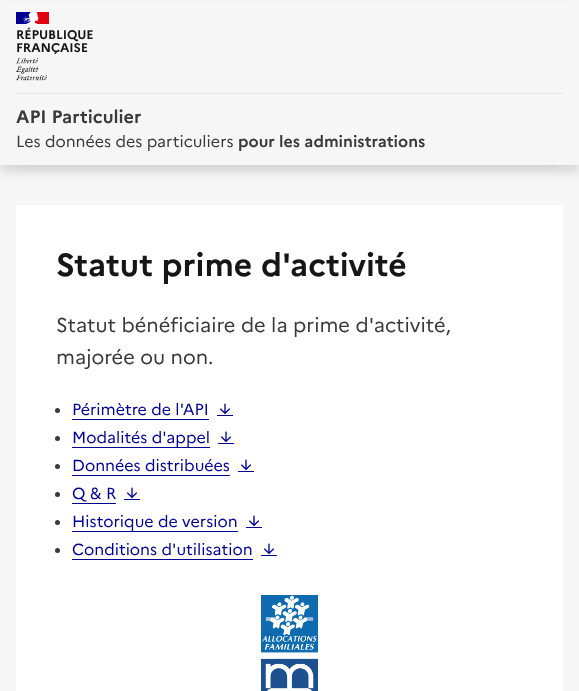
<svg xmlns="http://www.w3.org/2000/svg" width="579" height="691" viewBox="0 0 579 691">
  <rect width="100%" height="100%" fill="#f6f6f6"/>
  <path d="M16 24h547v133H16z" fill="#00000052" filter="blur(8px)"/>
  <path d="M0 8h579v165H0z" fill="#0000001a" filter="blur(4px)"/>
  <path d="M0 3h579v162H0z" fill="#f6f6f6"/>
  <path d="M16 12h16v12H16z" fill="#000091"/>
  <path d="M34 12h15v12H34z" fill="#e1000f"/>
  <image x="23" y="12" width="16" height="12" href="img/1.png"/>
  <image x="16" y="58" width="31" height="23" href="img/2.png"/>
  <path d="M16 93h547v1H16z" fill="#e5e5e5"/>
  <path d="M16 205h547v486H16z" fill="#fff"/>
  <circle cx="57.5" cy="410.5" r="2.5" fill="#3a3a3a"/>
  <path d="M72 419h137v1H72z" fill="#000091"/>
  <path d="M217 415h16v1H217z" fill="#000091"/>
  <image x="219" y="403" width="12" height="12" href="img/3.png"/>
  <circle cx="57.5" cy="438.5" r="2.5" fill="#3a3a3a"/>
  <path d="M72 447h138v1H72z" fill="#000091"/>
  <path d="M218 443h16v1H218z" fill="#000091"/>
  <image x="220" y="431" width="12" height="12" href="img/3.png"/>
  <circle cx="57.5" cy="466.5" r="2.5" fill="#3a3a3a"/>
  <path d="M72 475h158v1H72z" fill="#000091"/>
  <path d="M238 471h16v1H238z" fill="#000091"/>
  <image x="240" y="459" width="12" height="12" href="img/3.png"/>
  <circle cx="57.5" cy="494.5" r="2.5" fill="#3a3a3a"/>
  <path d="M72 503h44v1H72z" fill="#000091"/>
  <path d="M124 499h16v1H124z" fill="#000091"/>
  <image x="126" y="487" width="12" height="12" href="img/3.png"/>
  <circle cx="57.5" cy="522.5" r="2.5" fill="#3a3a3a"/>
  <path d="M72 531h166v1H72z" fill="#000091"/>
  <path d="M246 527h16v1H246z" fill="#000091"/>
  <image x="248" y="515" width="12" height="12" href="img/3.png"/>
  <circle cx="57.5" cy="550.5" r="2.5" fill="#3a3a3a"/>
  <path d="M72 559h181v1H72z" fill="#000091"/>
  <path d="M261 555h16v1H261z" fill="#000091"/>
  <image x="263" y="543" width="12" height="12" href="img/3.png"/>
  <image x="261" y="595" width="57" height="96" href="img/4.png"/>
  <g font-family="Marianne" font-size="12.5" font-weight="bold" letter-spacing="-0.1" fill="#161616">
    <text x="16" y="39">RÉPUBLIQUE</text>
    <text x="16" y="52">FRANÇAISE</text>
  </g>
  <text x="16" y="123" font-family="Marianne" font-size="18" font-weight="bold" fill="#3a3a3a">API Particulier</text>
  <text x="16" y="147" font-family="Marianne" font-size="16" fill="#3a3a3a">Les données des particuliers</text>
  <text x="238" y="147" font-family="Marianne" font-size="16" font-weight="bold" fill="#3a3a3a">pour les administrations</text>
  <text x="56" y="276" font-family="Marianne" font-size="32" font-weight="bold" fill="#161616">Statut prime d'activité</text>
  <g font-family="Marianne" font-size="20" fill="#3a3a3a">
    <text x="56" y="332">Statut bénéficiaire de la prime d'activité,</text>
    <text x="56" y="364">majorée ou non.</text>
  </g>
  <g font-family="Marianne" font-size="16" fill="#000091">
    <text x="72" y="415">Périmètre de l'API</text>
    <text x="72" y="443">Modalités d'appel</text>
    <text x="72" y="471">Données distribuées</text>
    <text x="72" y="499">Q &amp; R</text>
    <text x="72" y="527">Historique de version</text>
    <text x="72" y="555">Conditions d'utilisation</text>
  </g>
</svg>
